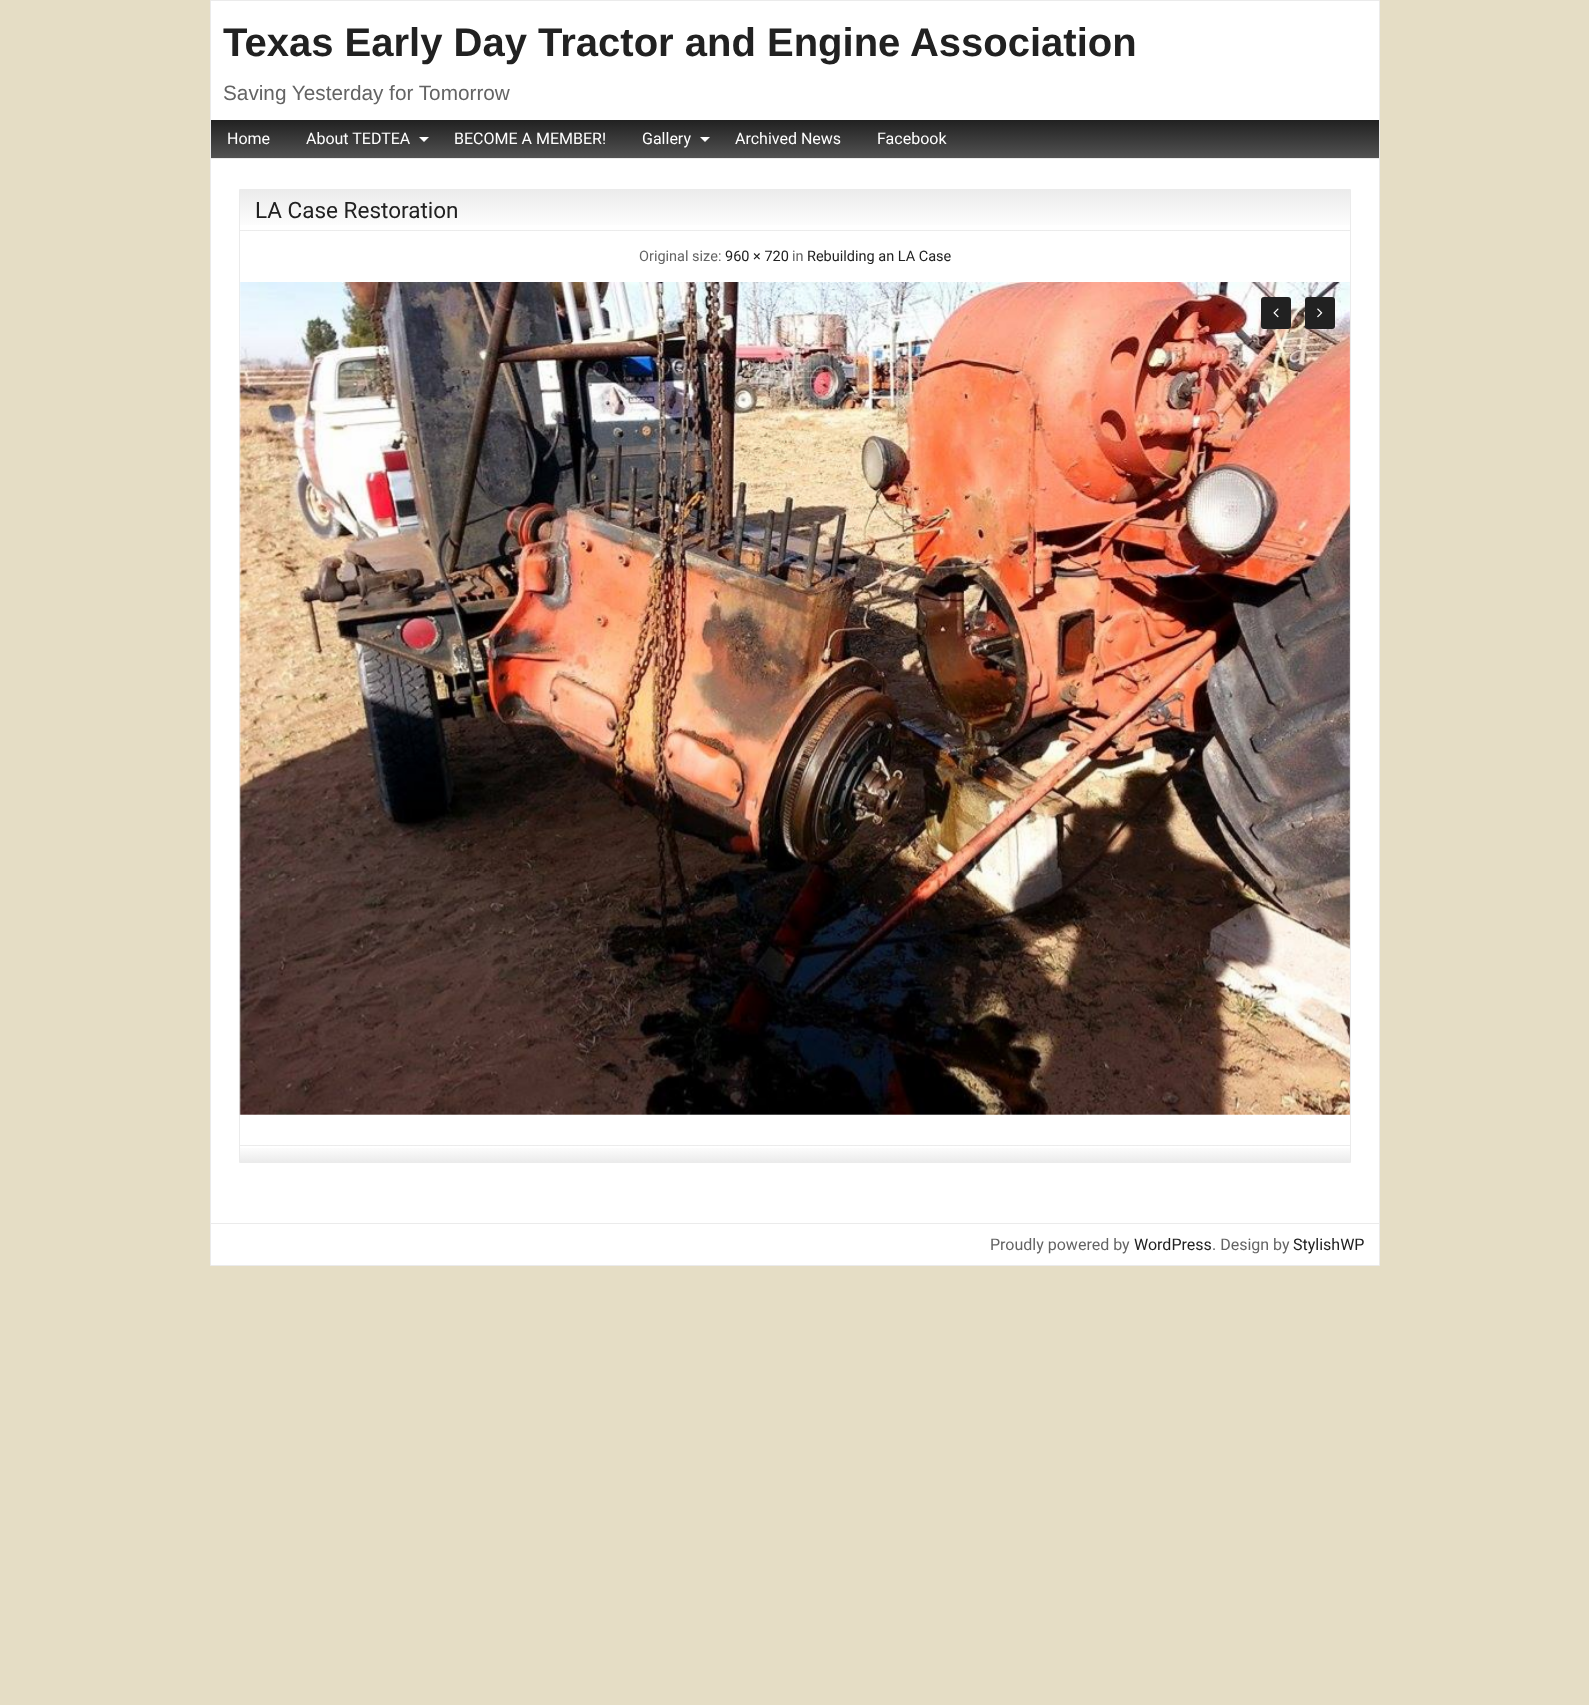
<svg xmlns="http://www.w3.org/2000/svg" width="1589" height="1705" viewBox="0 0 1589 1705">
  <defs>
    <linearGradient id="g1" gradientUnits="userSpaceOnUse" x1="211" y1="120" x2="211" y2="158"><stop offset="0" stop-color="#212121"/><stop offset="1" stop-color="#525252"/></linearGradient>
    <linearGradient id="g2" gradientUnits="userSpaceOnUse" x1="240" y1="190" x2="240" y2="230"><stop offset="0" stop-color="#ebebeb"/><stop offset="1" stop-color="#fff"/></linearGradient>
    <linearGradient id="g3" gradientUnits="userSpaceOnUse" x1="240" y1="230" x2="240" y2="270"><stop offset="0" stop-color="#ebebeb"/><stop offset="1" stop-color="#fff"/></linearGradient>
    <linearGradient id="g4" gradientUnits="userSpaceOnUse" x1="240" y1="1130" x2="240" y2="1146"><stop offset="0" stop-color="#fff"/><stop offset="1" stop-color="#ebebeb"/></linearGradient>
    <linearGradient id="g5" gradientUnits="userSpaceOnUse" x1="240" y1="1146" x2="240" y2="1162"><stop offset="0" stop-color="#fff"/><stop offset="1" stop-color="#ebebeb"/></linearGradient>
  </defs>
  <rect width="100%" height="100%" fill="#e5ddc5"/>
  <path d="M210.5 0.5h1169v1265H210.5z" fill="#fff" stroke="#ebebeb"/>
  <path d="M211 120h1168v38H211z" fill="url(#g1)"/>
  <path d="M419 137H429L424 142Z" fill="#fff"/>
  <path d="M700 137H710L705 142Z" fill="#fff"/>
  <path d="M211 158h1168v1H211z" fill="#ebebeb"/>
  <path d="M239.5 189.5h1111v973H239.5z" fill="none" stroke="#ebebeb"/>
  <path d="M240 190h1110v35H240z" fill="url(#g2)"/>
  <path d="M240 230h1110v1H240z" fill="url(#g3)"/>
  <image x="239" y="282" width="1111" height="833" href="img/1.png"/>
  <rect x="1261" y="297" width="30" height="32" rx="3" fill="#212121"/>
  <image x="1273" y="308" width="6" height="10" href="img/2.png"/>
  <rect x="1305" y="297" width="30" height="32" rx="3" fill="#212121"/>
  <image x="1317" y="308" width="6" height="10" href="img/3.png"/>
  <path d="M240 1145h1110v1H240z" fill="url(#g4)"/>
  <path d="M240 1148h1110v14H240z" fill="url(#g5)"/>
  <path d="M211 1223h1168v1H211z" fill="#ebebeb"/>
  <text x="223" y="56" font-family="Arimo" font-size="40" font-weight="bold" fill="#212121">Texas Early Day Tractor and Engine Association</text>
  <text x="223" y="100" font-family="Arimo" font-size="20.75" fill="#646464">Saving Yesterday for Tomorrow</text>
  <g font-family="Roboto" font-size="16" fill="#fff">
    <text x="227" y="144">Home</text>
    <text x="306" y="144">About TEDTEA</text>
    <text x="454" y="144">BECOME A MEMBER!</text>
    <text x="642" y="144">Gallery</text>
    <text x="735" y="144">Archived News</text>
    <text x="877" y="144">Facebook</text>
  </g>
  <text x="255" y="218" font-family="Roboto" font-size="22.5" fill="#212121">LA Case Restoration</text>
  <text x="639" y="261" font-family="Roboto" font-size="14.5" fill="#646464">Original size:</text>
  <text x="725" y="261" font-family="Roboto" font-size="14.5" fill="#212121">960 × 720</text>
  <text x="792" y="261" font-family="Roboto" font-size="14.5" fill="#646464">in</text>
  <text x="807" y="261" font-family="Roboto" font-size="14.5" fill="#212121">Rebuilding an LA Case</text>
  <text x="990" y="1250" font-family="Roboto" font-size="16" fill="#646464">Proudly powered by</text>
  <text x="1134" y="1250" font-family="Roboto" font-size="16" fill="#212121">WordPress</text>
  <text x="1212" y="1250" font-family="Roboto" font-size="16" fill="#646464">. Design by</text>
  <text x="1293" y="1250" font-family="Roboto" font-size="16" fill="#212121">StylishWP</text>
</svg>
